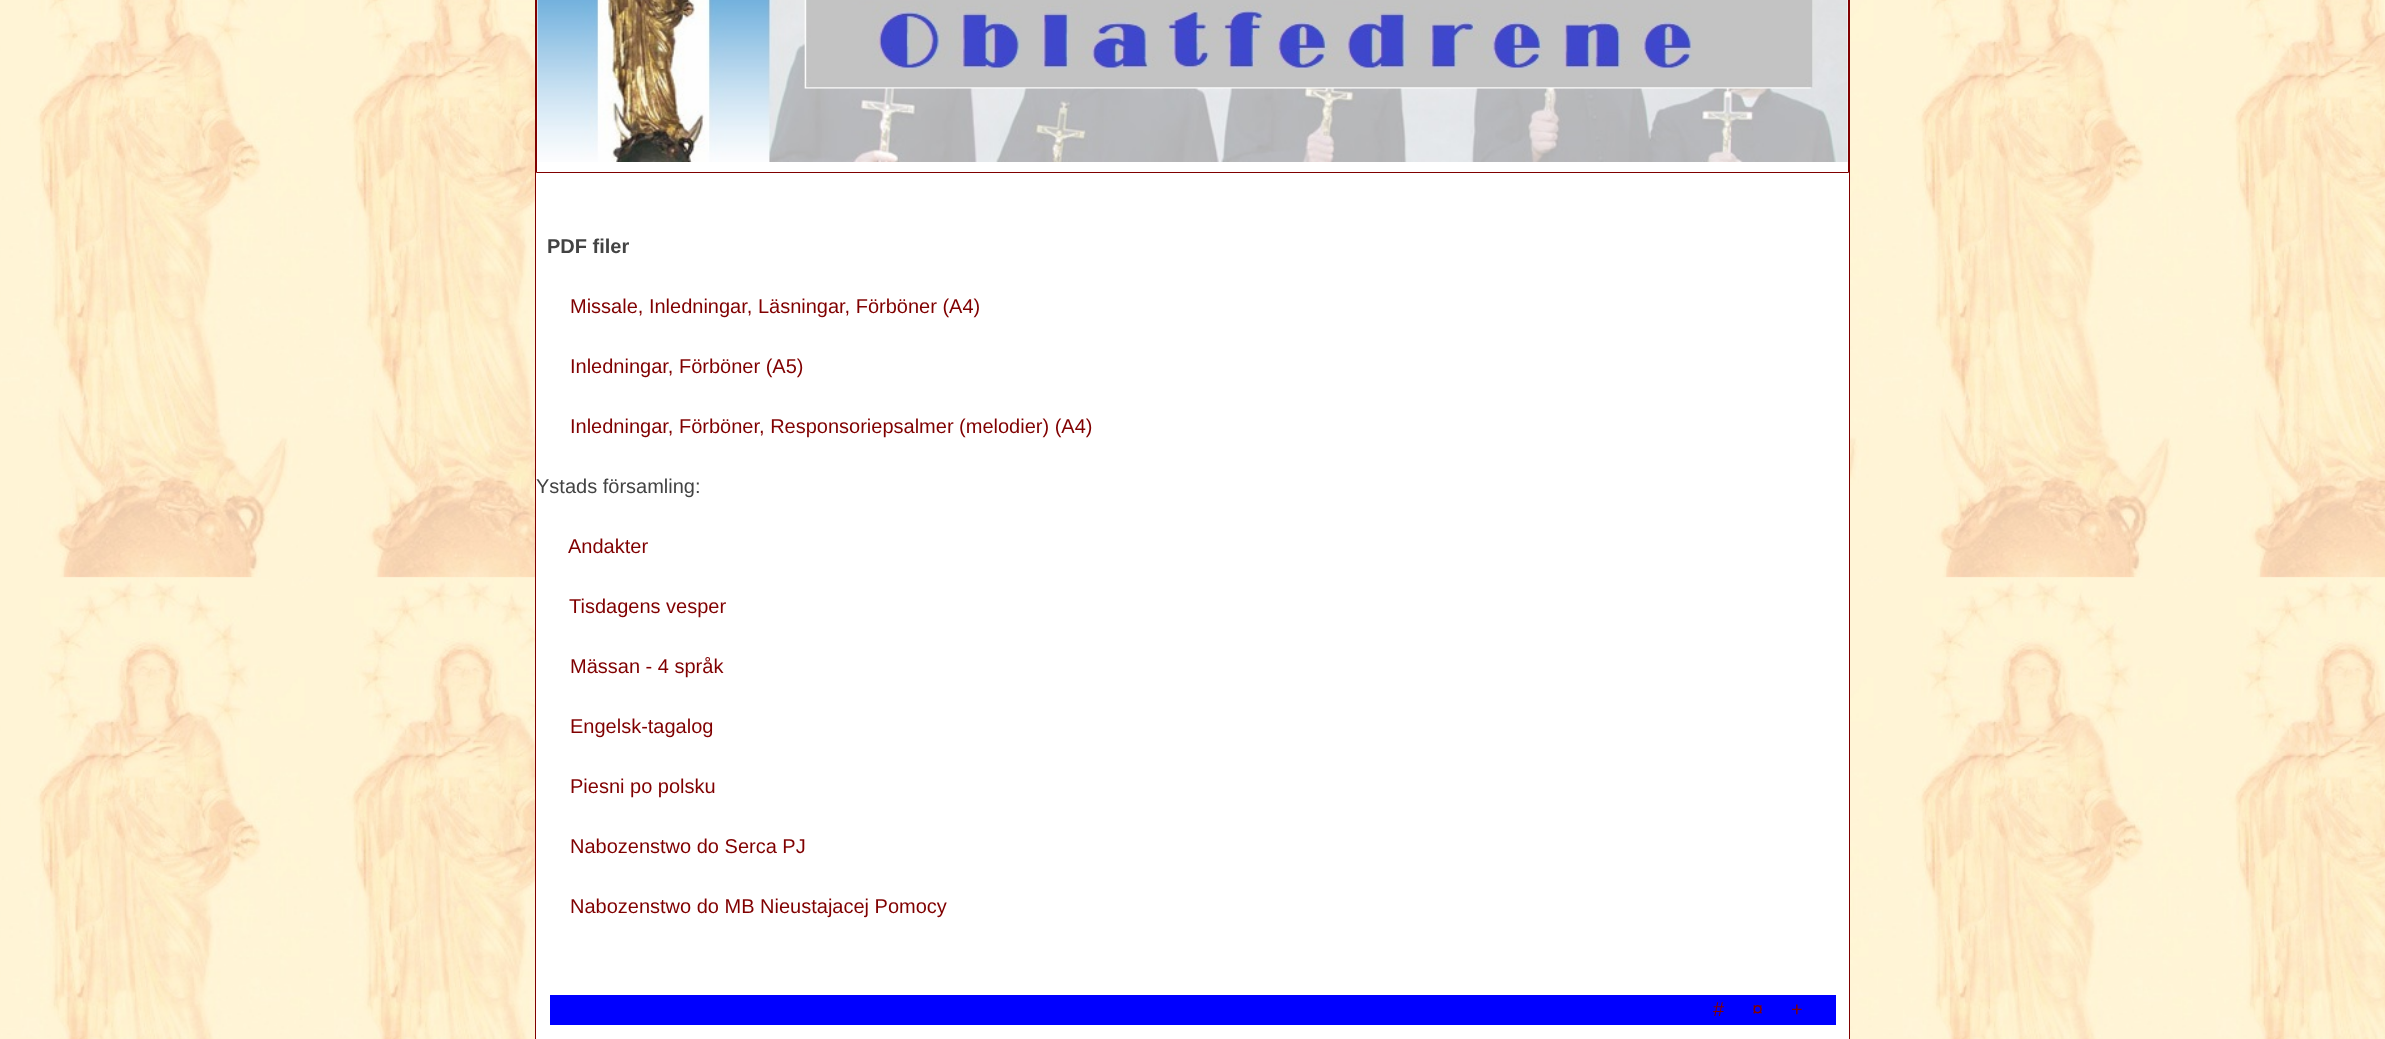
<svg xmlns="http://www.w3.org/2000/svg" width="2385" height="1039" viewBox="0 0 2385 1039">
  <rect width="100%" height="100%" fill="#fff"/>
  <image x="0" y="0" width="2385" height="1039" href="img/1.png"/>
  <path d="M535.5 -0.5h1314v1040H535.5z" fill="#fff" stroke="#800000"/>
  <path d="M536.5 -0.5h1312v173H536.5z" fill="none" stroke="#800000"/>
  <image x="537" y="0" width="1311" height="162" href="img/2.png"/>
  <path d="M550 995h1286v30H550z" fill="#00f"/>
  <text x="547" y="253" font-family="Liberation Sans" font-size="20" font-weight="bold" fill="#434343">PDF filer</text>
  <g font-family="Liberation Sans" font-size="20" fill="#800000">
    <text x="570" y="313">Missale, Inledningar, Läsningar, Förböner (A4)</text>
    <text x="570" y="373">Inledningar, Förböner (A5)</text>
    <text x="570" y="433">Inledningar, Förböner, Responsoriepsalmer (melodier) (A4)</text>
  </g>
  <text x="536" y="493" font-family="Liberation Sans" font-size="20" fill="#434343">Ystads församling:</text>
  <g font-family="Liberation Sans" font-size="20" fill="#800000">
    <text x="568" y="553">Andakter</text>
    <text x="569" y="613">Tisdagens vesper</text>
    <text x="570" y="673">Mässan - 4 språk</text>
    <text x="570" y="733">Engelsk-tagalog</text>
    <text x="570" y="793">Piesni po polsku</text>
    <text x="570" y="853">Nabozenstwo do Serca PJ</text>
    <text x="570" y="913">Nabozenstwo do MB Nieustajacej Pomocy</text>
    <text x="1713" y="1016">#</text>
    <text x="1752" y="1016">¤</text>
    <text x="1791" y="1016">+</text>
  </g>
</svg>
